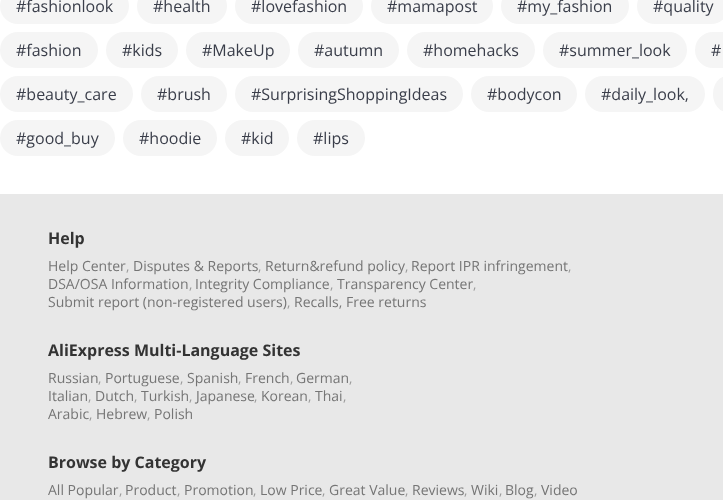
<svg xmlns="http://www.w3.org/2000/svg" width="723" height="500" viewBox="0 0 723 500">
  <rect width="100%" height="100%" fill="#fff"/>
  <rect y="-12" width="129" height="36" rx="18" fill="#f5f5f5"/>
  <rect x="137" y="-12" width="90" height="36" rx="18" fill="#f5f5f5"/>
  <rect x="235" y="-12" width="128" height="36" rx="18" fill="#f5f5f5"/>
  <rect x="371" y="-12" width="122" height="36" rx="18" fill="#f5f5f5"/>
  <rect x="501" y="-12" width="128" height="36" rx="18" fill="#f5f5f5"/>
  <rect x="637" y="-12" width="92" height="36" rx="18" fill="#f5f5f5"/>
  <rect y="32" width="98" height="36" rx="18" fill="#f5f5f5"/>
  <rect x="106" y="32" width="72" height="36" rx="18" fill="#f5f5f5"/>
  <rect x="186" y="32" width="104" height="36" rx="18" fill="#f5f5f5"/>
  <rect x="298" y="32" width="101" height="36" rx="18" fill="#f5f5f5"/>
  <rect x="407" y="32" width="128" height="36" rx="18" fill="#f5f5f5"/>
  <rect x="543" y="32" width="144" height="36" rx="18" fill="#f5f5f5"/>
  <rect x="695" y="32" width="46" height="36" rx="18" fill="#f5f5f5"/>
  <rect y="76" width="133" height="36" rx="18" fill="#f5f5f5"/>
  <rect x="141" y="76" width="86" height="36" rx="18" fill="#f5f5f5"/>
  <rect x="235" y="76" width="228" height="36" rx="18" fill="#f5f5f5"/>
  <rect x="471" y="76" width="106" height="36" rx="18" fill="#f5f5f5"/>
  <rect x="585" y="76" width="120" height="36" rx="18" fill="#f5f5f5"/>
  <rect x="713" y="76" width="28" height="36" rx="18" fill="#f5f5f5"/>
  <rect y="120" width="115" height="36" rx="18" fill="#f5f5f5"/>
  <rect x="123" y="120" width="94" height="36" rx="18" fill="#f5f5f5"/>
  <rect x="225" y="120" width="64" height="36" rx="18" fill="#f5f5f5"/>
  <rect x="297" y="120" width="68" height="36" rx="18" fill="#f5f5f5"/>
  <path d="M0 194h723v306H0z" fill="#e8e8e8"/>
  <g font-family="Open Sans" font-size="16" fill="#3a3e4a">
    <text x="16" y="12">#fashionlook</text>
    <text x="153" y="12">#health</text>
    <text x="251" y="12">#lovefashion</text>
    <text x="387" y="12">#mamapost</text>
    <text x="517" y="12">#my_fashion</text>
    <text x="653" y="12">#quality</text>
    <text x="16" y="56">#fashion</text>
    <text x="122" y="56">#kids</text>
    <text x="202" y="56">#MakeUp</text>
    <text x="314" y="56">#autumn</text>
    <text x="423" y="56">#homehacks</text>
    <text x="559" y="56">#summer_look</text>
    <text x="711" y="56">#</text>
    <text x="16" y="100">#beauty_care</text>
    <text x="157" y="100">#brush</text>
    <text x="251" y="100">#SurprisingShoppingIdeas</text>
    <text x="487" y="100">#bodycon</text>
    <text x="601" y="100">#daily_look,</text>
    <text x="16" y="144">#good_buy</text>
    <text x="139" y="144">#hoodie</text>
    <text x="241" y="144">#kid</text>
    <text x="313" y="144">#lips</text>
  </g>
  <text x="48" y="244" font-family="Open Sans" font-size="16" font-weight="bold" fill="#333">Help</text>
  <text x="48" y="271" font-family="Open Sans" font-size="14" fill="#757575">Help Center</text>
  <text x="126" y="271" font-family="Open Sans" font-size="13" fill="#999">,</text>
  <text x="133" y="271" font-family="Open Sans" font-size="14" fill="#757575">Disputes &amp; Reports</text>
  <text x="258" y="271" font-family="Open Sans" font-size="13" fill="#999">,</text>
  <text x="265" y="271" font-family="Open Sans" font-size="14" fill="#757575">Return&amp;refund policy</text>
  <text x="405" y="271" font-family="Open Sans" font-size="13" fill="#999">,</text>
  <text x="411" y="271" font-family="Open Sans" font-size="14" fill="#757575">Report IPR infringement</text>
  <text x="568" y="271" font-family="Open Sans" font-size="13" fill="#999">,</text>
  <text x="48" y="289" font-family="Open Sans" font-size="14" fill="#757575">DSA/OSA Information</text>
  <text x="189" y="289" font-family="Open Sans" font-size="13" fill="#999">,</text>
  <text x="195" y="289" font-family="Open Sans" font-size="14" fill="#757575">Integrity Compliance</text>
  <text x="330" y="289" font-family="Open Sans" font-size="13" fill="#999">,</text>
  <text x="337" y="289" font-family="Open Sans" font-size="14" fill="#757575">Transparency Center</text>
  <text x="473" y="289" font-family="Open Sans" font-size="13" fill="#999">,</text>
  <text x="48" y="307" font-family="Open Sans" font-size="14" fill="#757575">Submit report (non-registered users)</text>
  <text x="287" y="307" font-family="Open Sans" font-size="13" fill="#999">,</text>
  <text x="294" y="307" font-family="Open Sans" font-size="14" fill="#757575">Recalls, Free returns</text>
  <text x="48" y="356" font-family="Open Sans" font-size="16" font-weight="bold" fill="#333">AliExpress Multi-Language Sites</text>
  <text x="48" y="383" font-family="Open Sans" font-size="14" fill="#757575">Russian</text>
  <text x="98" y="383" font-family="Open Sans" font-size="13" fill="#999">,</text>
  <text x="105" y="383" font-family="Open Sans" font-size="14" fill="#757575">Portuguese</text>
  <text x="180" y="383" font-family="Open Sans" font-size="13" fill="#999">,</text>
  <text x="187" y="383" font-family="Open Sans" font-size="14" fill="#757575">Spanish</text>
  <text x="238" y="383" font-family="Open Sans" font-size="13" fill="#999">,</text>
  <text x="245" y="383" font-family="Open Sans" font-size="14" fill="#757575">French</text>
  <text x="290" y="383" font-family="Open Sans" font-size="13" fill="#999">,</text>
  <text x="296" y="383" font-family="Open Sans" font-size="14" fill="#757575">German</text>
  <text x="349" y="383" font-family="Open Sans" font-size="13" fill="#999">,</text>
  <text x="48" y="401" font-family="Open Sans" font-size="14" fill="#757575">Italian</text>
  <text x="88" y="401" font-family="Open Sans" font-size="13" fill="#999">,</text>
  <text x="95" y="401" font-family="Open Sans" font-size="14" fill="#757575">Dutch</text>
  <text x="134" y="401" font-family="Open Sans" font-size="13" fill="#999">,</text>
  <text x="141" y="401" font-family="Open Sans" font-size="14" fill="#757575">Turkish</text>
  <text x="189" y="401" font-family="Open Sans" font-size="13" fill="#999">,</text>
  <text x="196" y="401" font-family="Open Sans" font-size="14" fill="#757575">Japanese</text>
  <text x="254" y="401" font-family="Open Sans" font-size="13" fill="#999">,</text>
  <text x="261" y="401" font-family="Open Sans" font-size="14" fill="#757575">Korean</text>
  <text x="308" y="401" font-family="Open Sans" font-size="13" fill="#999">,</text>
  <text x="315" y="401" font-family="Open Sans" font-size="14" fill="#757575">Thai</text>
  <text x="343" y="401" font-family="Open Sans" font-size="13" fill="#999">,</text>
  <text x="48" y="419" font-family="Open Sans" font-size="14" fill="#757575">Arabic</text>
  <text x="89" y="419" font-family="Open Sans" font-size="13" fill="#999">,</text>
  <text x="96" y="419" font-family="Open Sans" font-size="14" fill="#757575">Hebrew</text>
  <text x="147" y="419" font-family="Open Sans" font-size="13" fill="#999">,</text>
  <text x="154" y="419" font-family="Open Sans" font-size="14" fill="#757575">Polish</text>
  <text x="48" y="468" font-family="Open Sans" font-size="16" font-weight="bold" fill="#333">Browse by Category</text>
  <text x="48" y="495" font-family="Open Sans" font-size="14" fill="#757575">All Popular</text>
  <text x="119" y="495" font-family="Open Sans" font-size="13" fill="#999">,</text>
  <text x="125" y="495" font-family="Open Sans" font-size="14" fill="#757575">Product</text>
  <text x="177" y="495" font-family="Open Sans" font-size="13" fill="#999">,</text>
  <text x="184" y="495" font-family="Open Sans" font-size="14" fill="#757575">Promotion</text>
  <text x="253" y="495" font-family="Open Sans" font-size="13" fill="#999">,</text>
  <text x="260" y="495" font-family="Open Sans" font-size="14" fill="#757575">Low Price</text>
  <text x="322" y="495" font-family="Open Sans" font-size="13" fill="#999">,</text>
  <text x="329" y="495" font-family="Open Sans" font-size="14" fill="#757575">Great Value</text>
  <text x="405" y="495" font-family="Open Sans" font-size="13" fill="#999">,</text>
  <text x="412" y="495" font-family="Open Sans" font-size="14" fill="#757575">Reviews</text>
  <text x="464" y="495" font-family="Open Sans" font-size="13" fill="#999">,</text>
  <text x="471" y="495" font-family="Open Sans" font-size="14" fill="#757575">Wiki</text>
  <text x="499" y="495" font-family="Open Sans" font-size="13" fill="#999">,</text>
  <text x="505" y="495" font-family="Open Sans" font-size="14" fill="#757575">Blog</text>
  <text x="534" y="495" font-family="Open Sans" font-size="13" fill="#999">,</text>
  <text x="541" y="495" font-family="Open Sans" font-size="14" fill="#757575">Video</text>
</svg>
